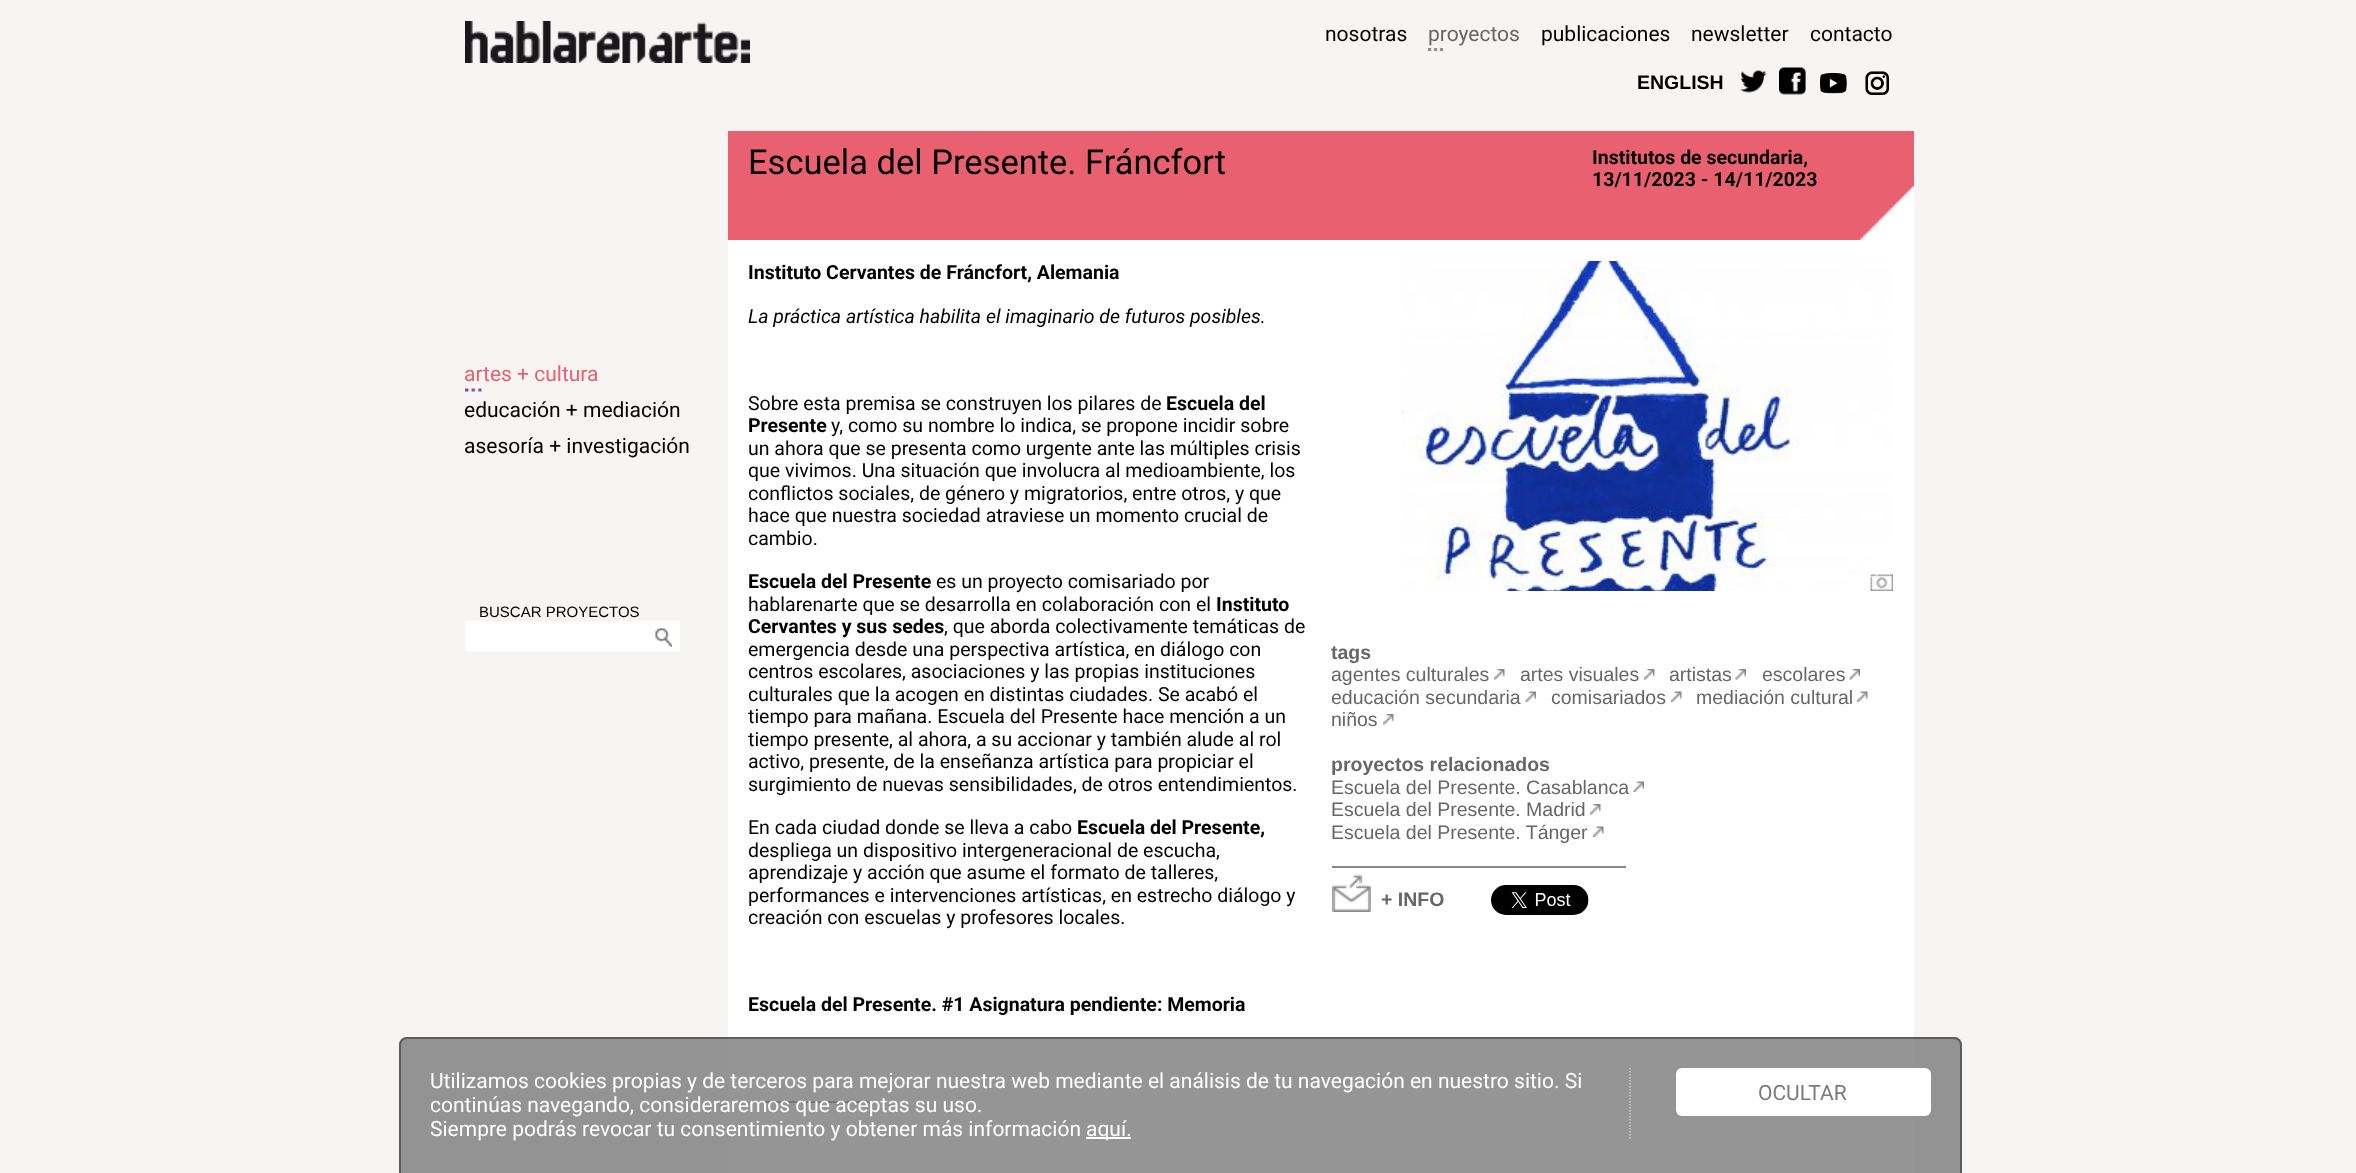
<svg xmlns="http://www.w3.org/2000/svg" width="2356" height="1173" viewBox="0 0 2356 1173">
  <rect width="100%" height="100%" fill="#f7f4f4"/>
  <image x="465" y="21" width="285" height="42" href="img/1.png"/>
  <image x="1428" y="48" width="15" height="3" href="img/2.png"/>
  <image x="1740" y="70" width="27" height="23" href="img/3.png"/>
  <image x="1779" y="67" width="27" height="28" href="img/4.png"/>
  <image x="1820" y="72" width="27" height="22" href="img/5.png"/>
  <image x="1865" y="71" width="24" height="24" href="img/6.png"/>
  <image x="465" y="388" width="17" height="4" href="img/7.png"/>
  <path d="M465 621h215v30H465z" fill="#fff"/>
  <image x="655" y="628" width="17" height="19" href="img/8.png"/>
  <path d="M728 240h1186v933H728z" fill="#fff"/>
  <path d="M728 131h1186v109H728z" fill="#e96070"/>
  <image x="1860" y="186" width="54" height="54" href="img/9.png"/>
  <path d="M749 1101h120v2H749z" fill="#666"/>
  <image x="1401" y="261" width="492" height="330" href="img/10.png"/>
  <image x="1494" y="669" width="11" height="11" href="img/11.png"/>
  <image x="1644" y="669" width="11" height="11" href="img/12.png"/>
  <image x="1735" y="669" width="11" height="11" href="img/13.png"/>
  <image x="1849" y="669" width="11" height="11" href="img/13.png"/>
  <image x="1525" y="691" width="11" height="11" href="img/14.png"/>
  <image x="1671" y="691" width="11" height="11" href="img/15.png"/>
  <image x="1857" y="691" width="11" height="11" href="img/16.png"/>
  <image x="1383" y="714" width="11" height="11" href="img/12.png"/>
  <image x="1633" y="781" width="11" height="11" href="img/14.png"/>
  <image x="1590" y="804" width="11" height="11" href="img/12.png"/>
  <image x="1593" y="826" width="11" height="11" href="img/15.png"/>
  <path d="M1332 866h294v2H1332z" fill="#888"/>
  <image x="1332" y="874" width="39" height="38" href="img/17.png"/>
  <image x="1491" y="885" width="98" height="30" href="img/18.png"/>
  <rect x="399" y="1037" width="1563" height="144" rx="8" fill="#7b7b7bcc"/>
  <rect x="400" y="1038" width="1561" height="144" rx="7" fill="none" stroke="#505050cc" stroke-width="2"/>
  <path d="M1630 1068V1140" fill="none" stroke="#cacaca" stroke-width="1.5" stroke-dasharray="1.5 1.5"/>
  <path d="M1086 1137h45v2H1086z" fill="#fff"/>
  <rect x="1676" y="1068" width="255" height="48" rx="6" fill="#fff"/>
  <text x="1325" y="41" font-family="Roboto" font-size="21" fill="#000">nosotras</text>
  <text x="1428" y="41" font-family="Roboto" font-size="21" fill="#666">proyectos</text>
  <g font-family="Roboto" font-size="21" fill="#000">
    <text x="1541" y="41">publicaciones</text>
    <text x="1691" y="41">newsletter</text>
    <text x="1810" y="41">contacto</text>
  </g>
  <text x="1637" y="89" font-family="Liberation Sans" font-size="19.5" font-weight="bold" fill="#000">ENGLISH</text>
  <text x="464" y="381" font-family="Roboto" font-size="21" fill="#e96070">artes + cultura</text>
  <g font-family="Roboto" font-size="21" fill="#000">
    <text x="464" y="417">educación + mediación</text>
    <text x="464" y="453">asesoría + investigación</text>
  </g>
  <text x="479" y="617" font-family="Liberation Sans" font-size="15" fill="#000">BUSCAR PROYECTOS</text>
  <text x="748" y="174" font-family="Roboto" font-size="34.5" fill="#000">Escuela del Presente. Fráncfort</text>
  <g font-family="Roboto" font-size="19.5" font-weight="bold" fill="#000">
    <text x="1592" y="164">Institutos de secundaria,</text>
    <text x="1592" y="186">13/11/2023 - 14/11/2023</text>
    <text x="748" y="279">Instituto Cervantes de Fráncfort, Alemania</text>
  </g>
  <text x="748" y="323" font-family="Roboto" font-size="19.5" font-style="italic" fill="#000">La práctica artística habilita el imaginario de futuros posibles.</text>
  <text x="748" y="410" font-family="Roboto" font-size="19.5" fill="#000">Sobre esta premisa se construyen los pilares de</text>
  <g font-family="Roboto" font-size="19.5" font-weight="bold" fill="#000">
    <text x="1166" y="410">Escuela del</text>
    <text x="748" y="432">Presente</text>
  </g>
  <g font-family="Roboto" font-size="19.5" fill="#000">
    <text x="831" y="432">y, como su nombre lo indica, se propone incidir sobre</text>
    <text x="748" y="455">un ahora que se presenta como urgente ante las múltiples crisis</text>
    <text x="748" y="477">que vivimos. Una situación que involucra al medioambiente, los</text>
    <text x="748" y="500">conflictos sociales, de género y migratorios, entre otros, y que</text>
    <text x="748" y="522">hace que nuestra sociedad atraviese un momento crucial de</text>
    <text x="748" y="545">cambio.</text>
  </g>
  <text x="748" y="588" font-family="Roboto" font-size="19.5" font-weight="bold" fill="#000">Escuela del Presente</text>
  <g font-family="Roboto" font-size="19.5" fill="#000">
    <text x="936" y="588">es un proyecto comisariado por</text>
    <text x="748" y="611">hablarenarte que se desarrolla en colaboración con el</text>
  </g>
  <g font-family="Roboto" font-size="19.5" font-weight="bold" fill="#000">
    <text x="1216" y="611">Instituto</text>
    <text x="748" y="633">Cervantes y sus sedes</text>
  </g>
  <g font-family="Roboto" font-size="19.5" fill="#000">
    <text x="944" y="633">, que aborda colectivamente temáticas de</text>
    <text x="748" y="656">emergencia desde una perspectiva artística, en diálogo con</text>
    <text x="748" y="678">centros escolares, asociaciones y las propias instituciones</text>
    <text x="748" y="701">culturales que la acogen en distintas ciudades. Se acabó el</text>
    <text x="748" y="723">tiempo para mañana. Escuela del Presente hace mención a un</text>
    <text x="748" y="746">tiempo presente, al ahora, a su accionar y también alude al rol</text>
    <text x="748" y="768">activo, presente, de la enseñanza artística para propiciar el</text>
    <text x="748" y="791">surgimiento de nuevas sensibilidades, de otros entendimientos.</text>
    <text x="748" y="834">En cada ciudad donde se lleva a cabo</text>
  </g>
  <text x="1077" y="834" font-family="Roboto" font-size="19.5" font-weight="bold" fill="#000">Escuela del Presente,</text>
  <g font-family="Roboto" font-size="19.5" fill="#000">
    <text x="748" y="857">despliega un dispositivo intergeneracional de escucha,</text>
    <text x="748" y="879">aprendizaje y acción que asume el formato de talleres,</text>
    <text x="748" y="902">performances e intervenciones artísticas, en estrecho diálogo y</text>
    <text x="748" y="924">creación con escuelas y profesores locales.</text>
  </g>
  <text x="748" y="1011" font-family="Roboto" font-size="19.5" font-weight="bold" fill="#000">Escuela del Presente. #1 Asignatura pendiente: Memoria</text>
  <text x="1331" y="659" font-family="Liberation Sans" font-size="19.5" font-weight="bold" fill="#666">tags</text>
  <g font-family="Liberation Sans" font-size="19.5" fill="#666">
    <text x="1331" y="681">agentes culturales</text>
    <text x="1520" y="681">artes visuales</text>
    <text x="1669" y="681">artistas</text>
    <text x="1762" y="681">escolares</text>
    <text x="1331" y="704">educación secundaria</text>
    <text x="1551" y="704">comisariados</text>
    <text x="1696" y="704">mediación cultural</text>
    <text x="1331" y="726">niños</text>
  </g>
  <text x="1331" y="771" font-family="Liberation Sans" font-size="19.5" font-weight="bold" fill="#666">proyectos relacionados</text>
  <g font-family="Liberation Sans" font-size="19.5" fill="#666">
    <text x="1331" y="794">Escuela del Presente. Casablanca</text>
    <text x="1331" y="816">Escuela del Presente. Madrid</text>
    <text x="1331" y="839">Escuela del Presente. Tánger</text>
  </g>
  <text x="1381" y="906" font-family="Liberation Sans" font-size="19.5" font-weight="bold" fill="#666">+ INFO</text>
  <g font-family="Roboto" font-size="21" fill="#fff">
    <text x="430" y="1088">Utilizamos cookies propias y de terceros para mejorar nuestra web mediante el análisis de tu navegación en nuestro sitio. Si</text>
    <text x="430" y="1112">continúas navegando, consideraremos que aceptas su uso.</text>
    <text x="430" y="1136">Siempre podrás revocar tu consentimiento y obtener más información</text>
    <text x="1086" y="1136">aquí.</text>
  </g>
  <text x="1758" y="1100" font-family="Roboto" font-size="21" fill="#7b7b7b">OCULTAR</text>
</svg>
